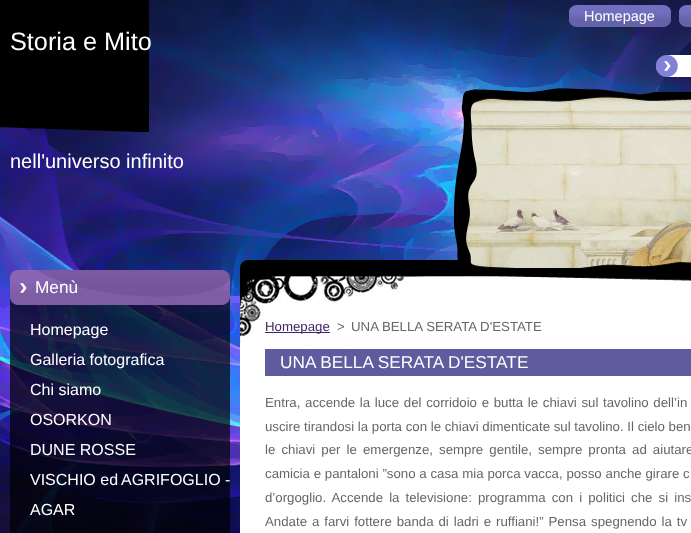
<svg xmlns="http://www.w3.org/2000/svg" width="691" height="533" viewBox="0 0 691 533">
  <rect width="100%" height="100%" fill="#fff"/>
  <image x="0" y="0" width="691" height="533" href="img/1.png"/>
  <image x="0" y="0" width="149" height="132" href="img/2.png"/>
  <path d="M240 265h451v268H240z" fill="#fff"/>
  <image x="569" y="5" width="15" height="22" href="img/3.png"/>
  <image x="584" y="5" width="72" height="22" href="img/4.png"/>
  <image x="656" y="5" width="15" height="22" href="img/5.png"/>
  <image x="679" y="5" width="12" height="22" href="img/6.png"/>
  <image x="656" y="55" width="35" height="22" href="img/7.png"/>
  <image x="240" y="260" width="451" height="10" href="img/8.png"/>
  <image x="466" y="94" width="225" height="174" href="img/10.png"/>
  <image x="453" y="88" width="238" height="180" href="img/9.png"/>
  <image x="10" y="270" width="220" height="35" href="img/11.png"/>
  <path d="M10 305h220v228H10z" fill="#000000b3"/>
  <image x="240" y="270" width="451" height="76" href="img/12.png"/>
  <path d="M265 332h65v1H265z" fill="#422466"/>
  <path d="M265 349h426v27H265z" fill="#5e5c9e"/>
  <text x="584" y="21" font-family="Liberation Sans" font-size="14.5" fill="#fff">Homepage</text>
  <text x="10" y="50" font-family="Liberation Sans" font-size="25.25" fill="#fff">Storia e Mito</text>
  <text x="10" y="168" font-family="Liberation Sans" font-size="20" fill="#fff">nell'universo infinito</text>
  <text x="35" y="293" font-family="Liberation Sans" font-size="17.25" fill="#fff">Menù</text>
  <g font-family="Liberation Sans" font-size="16" fill="#fff">
    <text x="30" y="335">Homepage</text>
    <text x="30" y="365">Galleria fotografica</text>
    <text x="30" y="395">Chi siamo</text>
    <text x="30" y="425">OSORKON</text>
    <text x="30" y="455">DUNE ROSSE</text>
    <text x="30" y="485">VISCHIO ed</text>
    <text x="121" y="485">AGRIFOGLIO -</text>
    <text x="30" y="515">AGAR</text>
  </g>
  <text x="265" y="331" font-family="Liberation Sans" font-size="13.25" fill="#422466">Homepage</text>
  <g font-family="Liberation Sans" font-size="13.25" fill="#666">
    <text x="337" y="331">&gt;</text>
    <text x="351" y="331">UNA BELLA SERATA D'ESTATE</text>
  </g>
  <text x="280" y="368" font-family="Liberation Sans" font-size="17.25" fill="#fff">UNA BELLA SERATA D'ESTATE</text>
  <g font-family="Liberation Sans" font-size="13.25" fill="#666">
    <text x="265" y="407" word-spacing="1">Entra, accende la luce del corridoio e butta le chiavi sul tavolino dell’in</text>
    <text x="265" y="431">uscire tirandosi la porta con le chiavi dimenticate sul tavolino. Il cielo ben</text>
    <text x="265" y="454" word-spacing="2.4">le chiavi per le emergenze, sempre gentile, sempre pronta ad aiutare</text>
    <text x="265" y="478" word-spacing="0.1">camicia e pantaloni ”sono a casa mia porca vacca, posso anche girare c</text>
    <text x="265" y="502" word-spacing="2.4">d’orgoglio. Accende la televisione: programma con i politici che si ins</text>
    <text x="265" y="526" word-spacing="1.25">Andate a farvi fottere banda di ladri e ruffiani!” Pensa spegnendo la tv</text>
  </g>
</svg>
